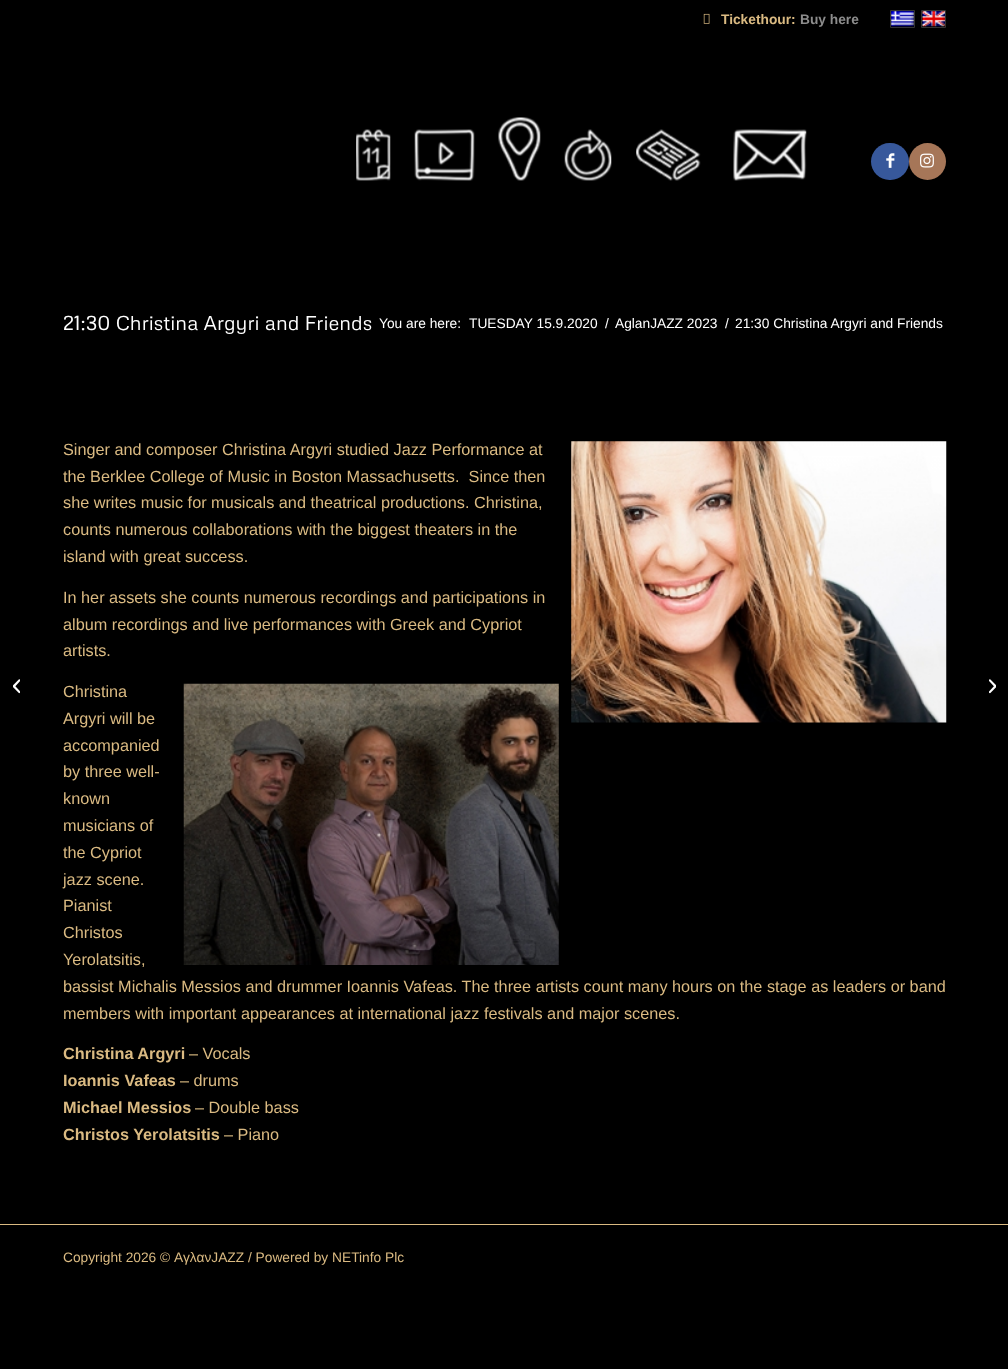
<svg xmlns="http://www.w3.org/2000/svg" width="1008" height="1369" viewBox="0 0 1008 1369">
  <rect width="100%" height="100%" fill="#000"/>
  <image x="703" y="13" width="7" height="11" href="img/1.png"/>
  <path d="M890.5 10.5h24v17H890.5z" fill="none" stroke="#333"/>
  <image x="891" y="11" width="23" height="16" href="img/2.png"/>
  <path d="M921.5 10.5h24v17H921.5z" fill="none" stroke="#333"/>
  <image x="922" y="11" width="23" height="16" href="img/3.png"/>
  <image x="356" y="129" width="35" height="52" href="img/4.png"/>
  <image x="414" y="129" width="61" height="52" href="img/5.png"/>
  <image x="498" y="117" width="43" height="64" href="img/6.png"/>
  <image x="564" y="129" width="48" height="52" href="img/7.png"/>
  <image x="636" y="129" width="65" height="52" href="img/8.png"/>
  <image x="733" y="129" width="74" height="52" href="img/9.png"/>
  <rect x="871" y="143" width="38" height="37" rx="18.5" fill="#37589b"/>
  <image x="886" y="153" width="9" height="15" href="img/10.png"/>
  <circle cx="927.5" cy="161.5" r="18.5" fill="#a67658"/>
  <image x="920" y="153" width="14" height="15" href="img/11.png"/>
  <image x="13" y="679" width="7" height="15" href="img/12.png"/>
  <image x="571" y="441" width="376" height="282" href="img/13.png"/>
  <image x="183" y="683" width="376" height="282" href="img/14.png"/>
  <path d="M0 1224h1008v1H0z" fill="#daba82"/>
  <image x="989" y="679" width="7" height="15" href="img/15.png"/>
  <text x="721" y="24" font-family="Liberation Sans" font-size="13.75" font-weight="bold" fill="#daba82">Tickethour:</text>
  <text x="800" y="24" font-family="Liberation Sans" font-size="13.75" font-weight="bold" fill="#8c8c8c">Buy here</text>
  <text x="63" y="330" font-family="Metrophobic" font-size="20" fill="#fff">21:30 Christina Argyri and Friends</text>
  <g font-family="Liberation Sans" font-size="13.75" fill="#fff">
    <text x="379" y="328">You are here:</text>
    <text x="469" y="328">TUESDAY 15.9.2020</text>
    <text x="605" y="328">/</text>
    <text x="615" y="328">AglanJAZZ 2023</text>
    <text x="725" y="328">/</text>
    <text x="735" y="328">21:30 Christina Argyri and Friends</text>
  </g>
  <g font-family="Liberation Sans" font-size="16.25" fill="#daba82">
    <text x="63" y="455">Singer and composer Christina Argyri studied Jazz Performance at</text>
    <text x="63" y="482" xml:space="preserve">the Berklee College of Music in Boston Massachusetts.  Since then</text>
    <text x="63" y="508">she writes music for musicals and theatrical productions. Christina,</text>
    <text x="63" y="535">counts numerous collaborations with the biggest theaters in the</text>
    <text x="63" y="562">island with great success.</text>
    <text x="63" y="603">In her assets she counts numerous recordings and participations in</text>
    <text x="63" y="630">album recordings and live performances with Greek and Cypriot</text>
    <text x="63" y="656">artists.</text>
    <text x="63" y="697">Christina</text>
    <text x="63" y="724">Argyri will be</text>
    <text x="63" y="751">accompanied</text>
    <text x="63" y="777">by three well-</text>
    <text x="63" y="804">known</text>
    <text x="63" y="831">musicians of</text>
    <text x="63" y="858">the Cypriot</text>
    <text x="63" y="885">jazz scene.</text>
    <text x="63" y="911">Pianist</text>
    <text x="63" y="938">Christos</text>
    <text x="63" y="965">Yerolatsitis,</text>
    <text x="63" y="992">bassist Michalis Messios and drummer Ioannis Vafeas. The three artists count many hours on the stage as leaders or band</text>
    <text x="63" y="1019">members with important appearances at international jazz festivals and major scenes.</text>
  </g>
  <text x="63" y="1059" font-family="Liberation Sans" font-size="16.25" font-weight="bold" fill="#daba82">Christina Argyri</text>
  <text x="189" y="1059" font-family="Liberation Sans" font-size="16.25" fill="#daba82">– Vocals</text>
  <text x="63" y="1086" font-family="Liberation Sans" font-size="16.25" font-weight="bold" fill="#daba82">Ioannis Vafeas</text>
  <text x="180" y="1086" font-family="Liberation Sans" font-size="16.25" fill="#daba82">– drums</text>
  <text x="63" y="1113" font-family="Liberation Sans" font-size="16.25" font-weight="bold" fill="#daba82">Michael Messios</text>
  <text x="195" y="1113" font-family="Liberation Sans" font-size="16.25" fill="#daba82">– Double bass</text>
  <text x="63" y="1140" font-family="Liberation Sans" font-size="16.25" font-weight="bold" fill="#daba82">Christos Yerolatsitis</text>
  <text x="224" y="1140" font-family="Liberation Sans" font-size="16.25" fill="#daba82">– Piano</text>
  <text x="63" y="1262" font-family="Liberation Sans" font-size="13.75" fill="#daba82">Copyright 2026 © ΑγλανJAZZ / Powered by NETinfo Plc</text>
</svg>
